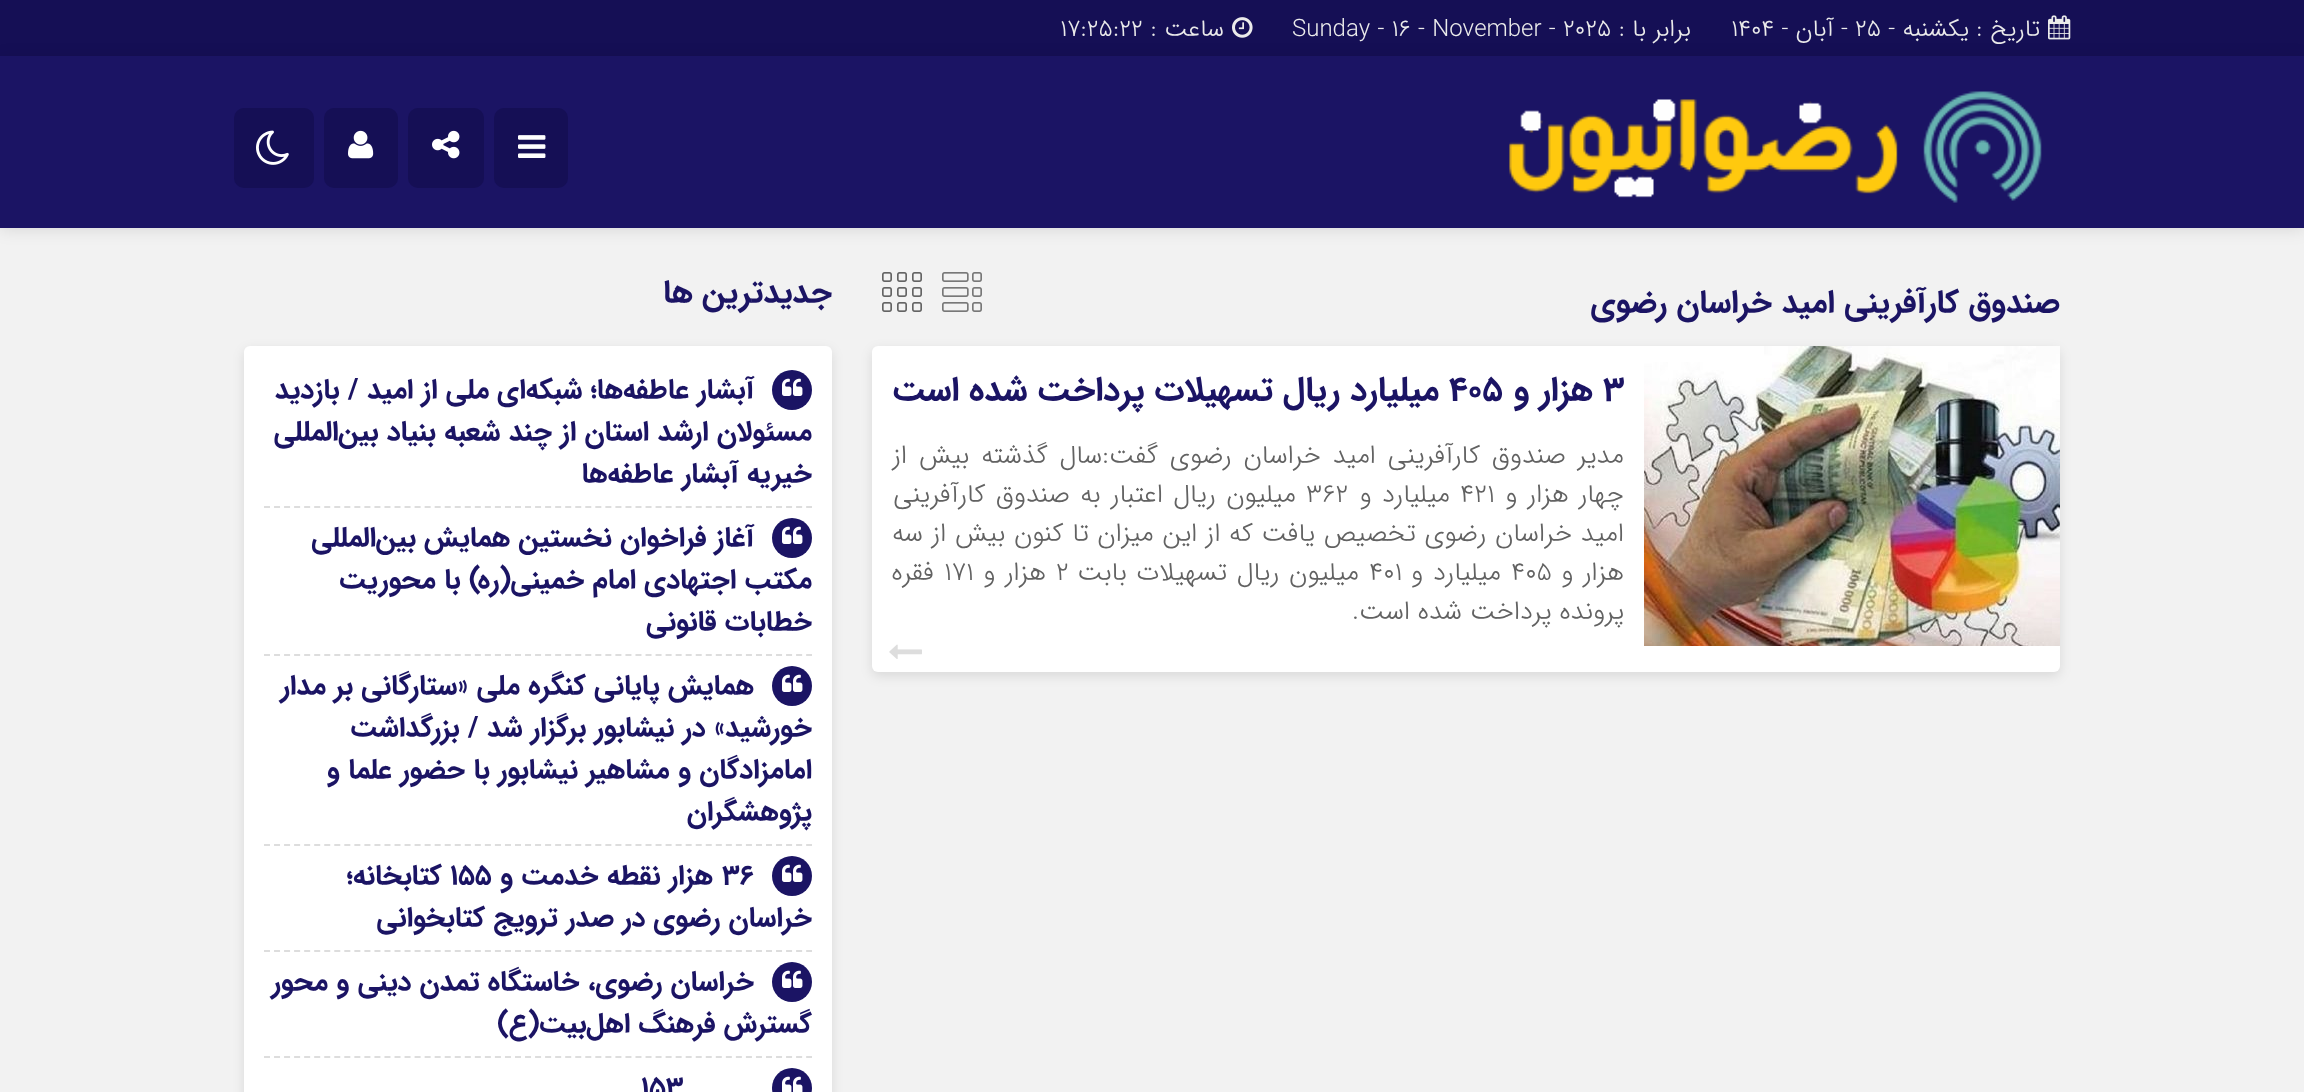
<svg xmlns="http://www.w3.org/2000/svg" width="2304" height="1092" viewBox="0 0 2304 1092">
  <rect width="100%" height="100%" fill="#f2f2f2"/>
  <path d="M0 0h2304v56H0z" fill="#150f55"/>
  <image x="2048" y="15" width="23" height="25" href="img/1.png"/>
  <image x="1232" y="17" width="21" height="21" href="img/2.png"/>
  <path d="M0 58h2304v172H0z" fill="#0000001a" filter="blur(8px)"/>
  <path d="M0 56h2304v172H0z" fill="#1b1464"/>
  <image x="1509" y="91" width="533" height="112" href="img/3.png"/>
  <rect x="494" y="108" width="74" height="80" rx="10" fill="#150f55"/>
  <image x="518" y="135" width="28" height="23" href="img/4.png"/>
  <rect x="408" y="108" width="76" height="80" rx="10" fill="#150f55"/>
  <image x="432" y="130" width="28" height="29" href="img/5.png"/>
  <rect x="324" y="108" width="74" height="80" rx="10" fill="#150f55"/>
  <image x="348" y="130" width="26" height="29" href="img/6.png"/>
  <rect x="234" y="108" width="80" height="80" rx="10" fill="#150f55"/>
  <image x="256" y="130" width="33" height="35" href="img/7.png"/>
  <image x="942" y="272" width="40" height="40" href="img/8.png"/>
  <image x="882" y="272" width="40" height="40" href="img/9.png"/>
  <rect x="872" y="350" width="1188" height="326" rx="6" fill="#0000001a" filter="blur(6px)"/>
  <rect x="872" y="346" width="1188" height="326" rx="6" fill="#fff"/>
  <image x="1644" y="346" width="416" height="300" href="img/10.png"/>
  <image x="889" y="644" width="33" height="15" href="img/11.png"/>
  <rect x="244" y="350" width="588" height="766" rx="6" fill="#0000001a" filter="blur(6px)"/>
  <rect x="244" y="346" width="588" height="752" rx="6" fill="#fff"/>
  <path d="M264 507H812" fill="none" stroke="#ddd" stroke-width="2" stroke-dasharray="6 4.04"/>
  <circle cx="792" cy="390" r="20" fill="#1b1464"/>
  <image x="782" y="378" width="21" height="18" href="img/12.png"/>
  <path d="M264 655H812" fill="none" stroke="#ddd" stroke-width="2" stroke-dasharray="6 4.04"/>
  <circle cx="792" cy="538" r="20" fill="#1b1464"/>
  <image x="782" y="526" width="21" height="18" href="img/12.png"/>
  <path d="M264 845H812" fill="none" stroke="#ddd" stroke-width="2" stroke-dasharray="6 4.04"/>
  <circle cx="792" cy="686" r="20" fill="#1b1464"/>
  <image x="782" y="674" width="21" height="18" href="img/12.png"/>
  <path d="M264 951H812" fill="none" stroke="#ddd" stroke-width="2" stroke-dasharray="6 4.04"/>
  <circle cx="792" cy="876" r="20" fill="#1b1464"/>
  <image x="782" y="864" width="21" height="18" href="img/12.png"/>
  <path d="M264 1057H812" fill="none" stroke="#ddd" stroke-width="2" stroke-dasharray="6 4.04"/>
  <circle cx="792" cy="982" r="20" fill="#1b1464"/>
  <image x="782" y="970" width="21" height="18" href="img/12.png"/>
  <circle cx="792" cy="1088" r="20" fill="#1b1464"/>
  <image x="782" y="1076" width="21" height="16" href="img/13.png"/>
  <text x="2040" y="36" font-family="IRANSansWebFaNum" font-size="24" font-weight="300" direction="rtl" fill="#ebebeb">تاریخ : یکشنبه -</text>
  <text x="1855" y="36" font-family="IRANSansWebFaNum" font-size="24" font-weight="300" fill="#ebebeb">۲۵</text>
  <text x="1848" y="36" font-family="IRANSansWebFaNum" font-size="24" font-weight="300" direction="rtl" fill="#ebebeb">- آبان -</text>
  <text x="1731" y="36" font-family="IRANSansWebFaNum" font-size="24" font-weight="300" fill="#ebebeb">۱۴۰۴</text>
  <text x="1691" y="36" font-family="IRANSansWebFaNum" font-size="24" font-weight="300" direction="rtl" fill="#ebebeb">برابر با :</text>
  <text x="1292" y="36" font-family="IRANSansWebFaNum" font-size="24" font-weight="300" fill="#ebebeb">Sunday - 16 - November - 2025</text>
  <text x="1224" y="36" font-family="IRANSansWebFaNum" font-size="24" font-weight="300" direction="rtl" fill="#ebebeb">ساعت :</text>
  <text x="1060" y="36" font-family="IRANSansWebFaNum" font-size="24" font-weight="300" fill="#ebebeb">17:25:22</text>
  <text x="2060" y="312" font-family="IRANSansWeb" font-size="32" font-weight="bold" direction="rtl" fill="#1b1464">صندوق کارآفرینی امید خراسان رضوی</text>
  <text x="1603" y="400" font-family="IRANSansWeb" font-size="34" font-weight="bold" fill="#1b1464">۳</text>
  <text x="1593" y="400" font-family="IRANSansWeb" font-size="34" font-weight="bold" direction="rtl" fill="#1b1464">هزار و</text>
  <text x="1449" y="400" font-family="IRANSansWeb" font-size="34" font-weight="bold" fill="#1b1464">۴۰۵</text>
  <text x="1439" y="400" font-family="IRANSansWeb" font-size="34" font-weight="bold" direction="rtl" fill="#1b1464">میلیارد ریال تسهیلات پرداخت شده است</text>
  <g font-family="IRANSansWebFaNum" font-size="26" font-weight="300" direction="rtl" fill="#626262">
    <text x="1624" y="463" word-spacing="4">مدیر صندوق کارآفرینی امید خراسان رضوی گفت:سال گذشته بیش از</text>
    <text x="1624" y="502" word-spacing="2.5">چهار هزار و</text>
  </g>
  <text x="1460" y="502" font-family="IRANSansWebFaNum" font-size="26" font-weight="300" fill="#626262">۴۲۱</text>
  <text x="1450" y="502" word-spacing="2.5" font-family="IRANSansWebFaNum" font-size="26" font-weight="300" direction="rtl" fill="#626262">میلیارد و</text>
  <text x="1306" y="502" font-family="IRANSansWebFaNum" font-size="26" font-weight="300" fill="#626262">۳۶۲</text>
  <g font-family="IRANSansWebFaNum" font-size="26" font-weight="300" direction="rtl" fill="#626262">
    <text x="1296" y="502" word-spacing="2.5">میلیون ریال اعتبار به صندوق کارآفرینی</text>
    <text x="1624" y="541" word-spacing="0.75">امید خراسان رضوی تخصیص یافت که از این میزان تا کنون بیش از سه</text>
    <text x="1624" y="580" word-spacing="2">هزار و</text>
  </g>
  <text x="1511" y="580" font-family="IRANSansWebFaNum" font-size="26" font-weight="300" fill="#626262">۴۰۵</text>
  <text x="1501" y="580" word-spacing="2" font-family="IRANSansWebFaNum" font-size="26" font-weight="300" direction="rtl" fill="#626262">میلیارد و</text>
  <text x="1369" y="580" font-family="IRANSansWebFaNum" font-size="26" font-weight="300" fill="#626262">۴۰۱</text>
  <text x="1359" y="580" word-spacing="2" font-family="IRANSansWebFaNum" font-size="26" font-weight="300" direction="rtl" fill="#626262">میلیون ریال تسهیلات بابت</text>
  <text x="1056" y="580" font-family="IRANSansWebFaNum" font-size="26" font-weight="300" fill="#626262">۲</text>
  <text x="1046" y="580" word-spacing="2" font-family="IRANSansWebFaNum" font-size="26" font-weight="300" direction="rtl" fill="#626262">هزار و</text>
  <text x="944" y="580" font-family="IRANSansWebFaNum" font-size="26" font-weight="300" fill="#626262">۱۷۱</text>
  <g font-family="IRANSansWebFaNum" font-size="26" font-weight="300" direction="rtl" fill="#626262">
    <text x="934" y="580">فقره</text>
    <text x="1624" y="619">پرونده پرداخت شده است.</text>
  </g>
  <text x="832" y="302" font-family="IRANSansWeb" font-size="32" font-weight="bold" direction="rtl" fill="#1b1464">جديدترين ها</text>
  <g font-family="IRANSansWeb" font-size="28" font-weight="bold" direction="rtl" fill="#1b1464">
    <text x="754" y="398">آبشار عاطفه‌ها؛ شبکه‌ای ملی از امید / بازدید</text>
    <text x="812" y="440">مسئولان ارشد استان از چند شعبه بنیاد بین‌المللی</text>
    <text x="812" y="482">خیریه آبشار عاطفه‌ها</text>
    <text x="754" y="546">آغاز فراخوان نخستین همایش بین‌المللی</text>
    <text x="812" y="588">مکتب اجتهادی امام خمینی(ره) با محوریت</text>
    <text x="812" y="630">خطابات قانونی</text>
    <text x="754" y="694">همایش پایانی کنگره ملی «ستارگانی بر مدار</text>
    <text x="812" y="736">خورشید» در نیشابور برگزار شد / بزرگداشت</text>
    <text x="812" y="778">امامزادگان و مشاهیر نیشابور با حضور علما و</text>
    <text x="812" y="820">پژوهشگران</text>
  </g>
  <text x="722" y="884" font-family="IRANSansWeb" font-size="28" font-weight="bold" fill="#1b1464">۳۶</text>
  <text x="713" y="884" font-family="IRANSansWeb" font-size="28" font-weight="bold" direction="rtl" fill="#1b1464">هزار نقطه خدمت و</text>
  <text x="450" y="884" font-family="IRANSansWeb" font-size="28" font-weight="bold" fill="#1b1464">۱۵۵</text>
  <g font-family="IRANSansWeb" font-size="28" font-weight="bold" direction="rtl" fill="#1b1464">
    <text x="442" y="884">کتابخانه؛</text>
    <text x="812" y="926">خراسان رضوی در صدر ترویج کتابخوانی</text>
    <text x="754" y="990">خراسان رضوی، خاستگاه تمدن دینی و محور</text>
    <text x="812" y="1032">گسترش فرهنگ اهل‌بیت(ع)</text>
  </g>
  <text x="641" y="1096" font-family="IRANSansWeb" font-size="28" font-weight="bold" fill="#1b1464">۱۵۳</text>
</svg>
